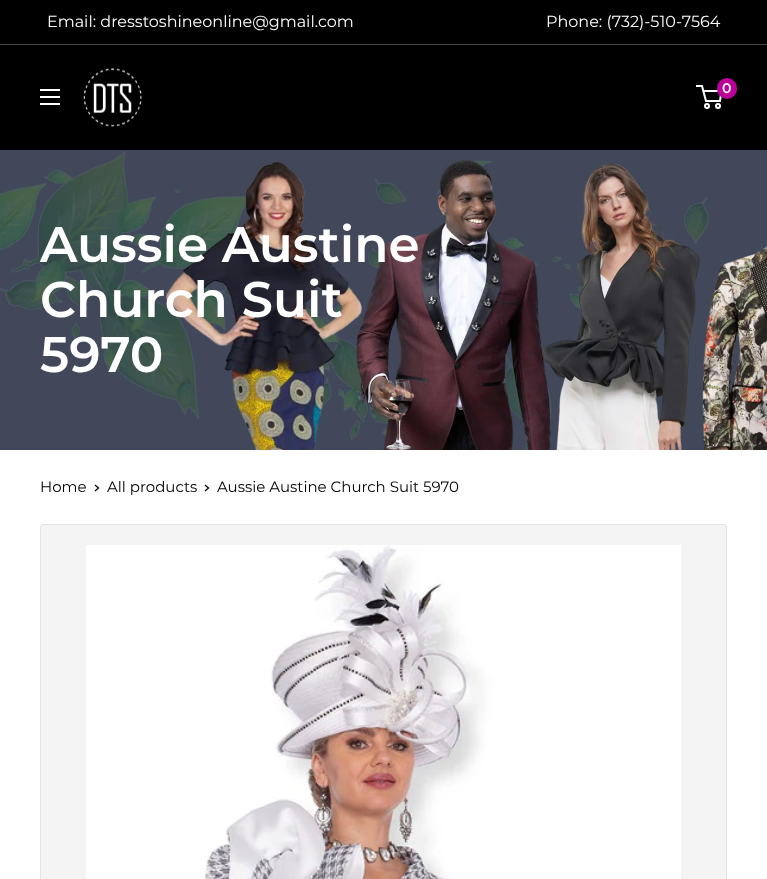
<svg xmlns="http://www.w3.org/2000/svg" width="767" height="879" viewBox="0 0 767 879">
  <rect width="100%" height="100%" fill="#fff"/>
  <path d="M0 0h767v44H0z" fill="#000"/>
  <path d="M0 44h767v1H0z" fill="#464442"/>
  <path d="M0 45h767v105H0z" fill="#000"/>
  <image x="40" y="89" width="20" height="16" href="img/1.png"/>
  <image x="83" y="68" width="59" height="59" href="img/2.png"/>
  <circle cx="707" cy="106" r="2" fill="none" stroke="#fff" stroke-width="2"/>
  <circle cx="718" cy="106" r="2" fill="none" stroke="#fff" stroke-width="2"/>
  <path d="M703.5 91H721.5L720 101H706L702 86H696" fill="none" stroke="#fff" stroke-width="2"/>
  <rect x="717" y="78" width="20" height="21" rx="10" fill="#b09"/>
  <image x="0" y="150" width="767" height="300" href="img/3.png"/>
  <path d="M95.5 485.5L98.5 488L95.5 490.5" fill="none" stroke="#000" stroke-width="1.3" stroke-linecap="square"/>
  <path d="M205.5 485.5L208.5 488L205.5 490.5" fill="none" stroke="#000" stroke-width="1.3" stroke-linecap="square"/>
  <rect x="40.5" y="524.5" width="686" height="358" rx="2.5" fill="#f5f4f4" stroke="#e7e2de"/>
  <image x="86" y="545" width="595" height="334" href="img/4.png"/>
  <g font-family="Montserrat" font-size="16" fill="#fff">
    <text x="47" y="27">Email: dresstoshineonline@gmail.com</text>
    <text x="546" y="27">Phone: (732)-510-7564</text>
  </g>
  <text x="722" y="93" font-family="Montserrat" font-size="14" font-weight="600" fill="#f5f4f4">0</text>
  <g font-family="Montserrat" font-size="50" font-weight="600" fill="#fff">
    <text x="40" y="262">Aussie Austine</text>
    <text x="40" y="317">Church Suit</text>
    <text x="40" y="372">5970</text>
  </g>
  <g font-family="Montserrat" font-size="15" fill="#000">
    <text x="40" y="492">Home</text>
    <text x="107" y="492">All products</text>
    <text x="217" y="492">Aussie Austine Church Suit 5970</text>
  </g>
</svg>
